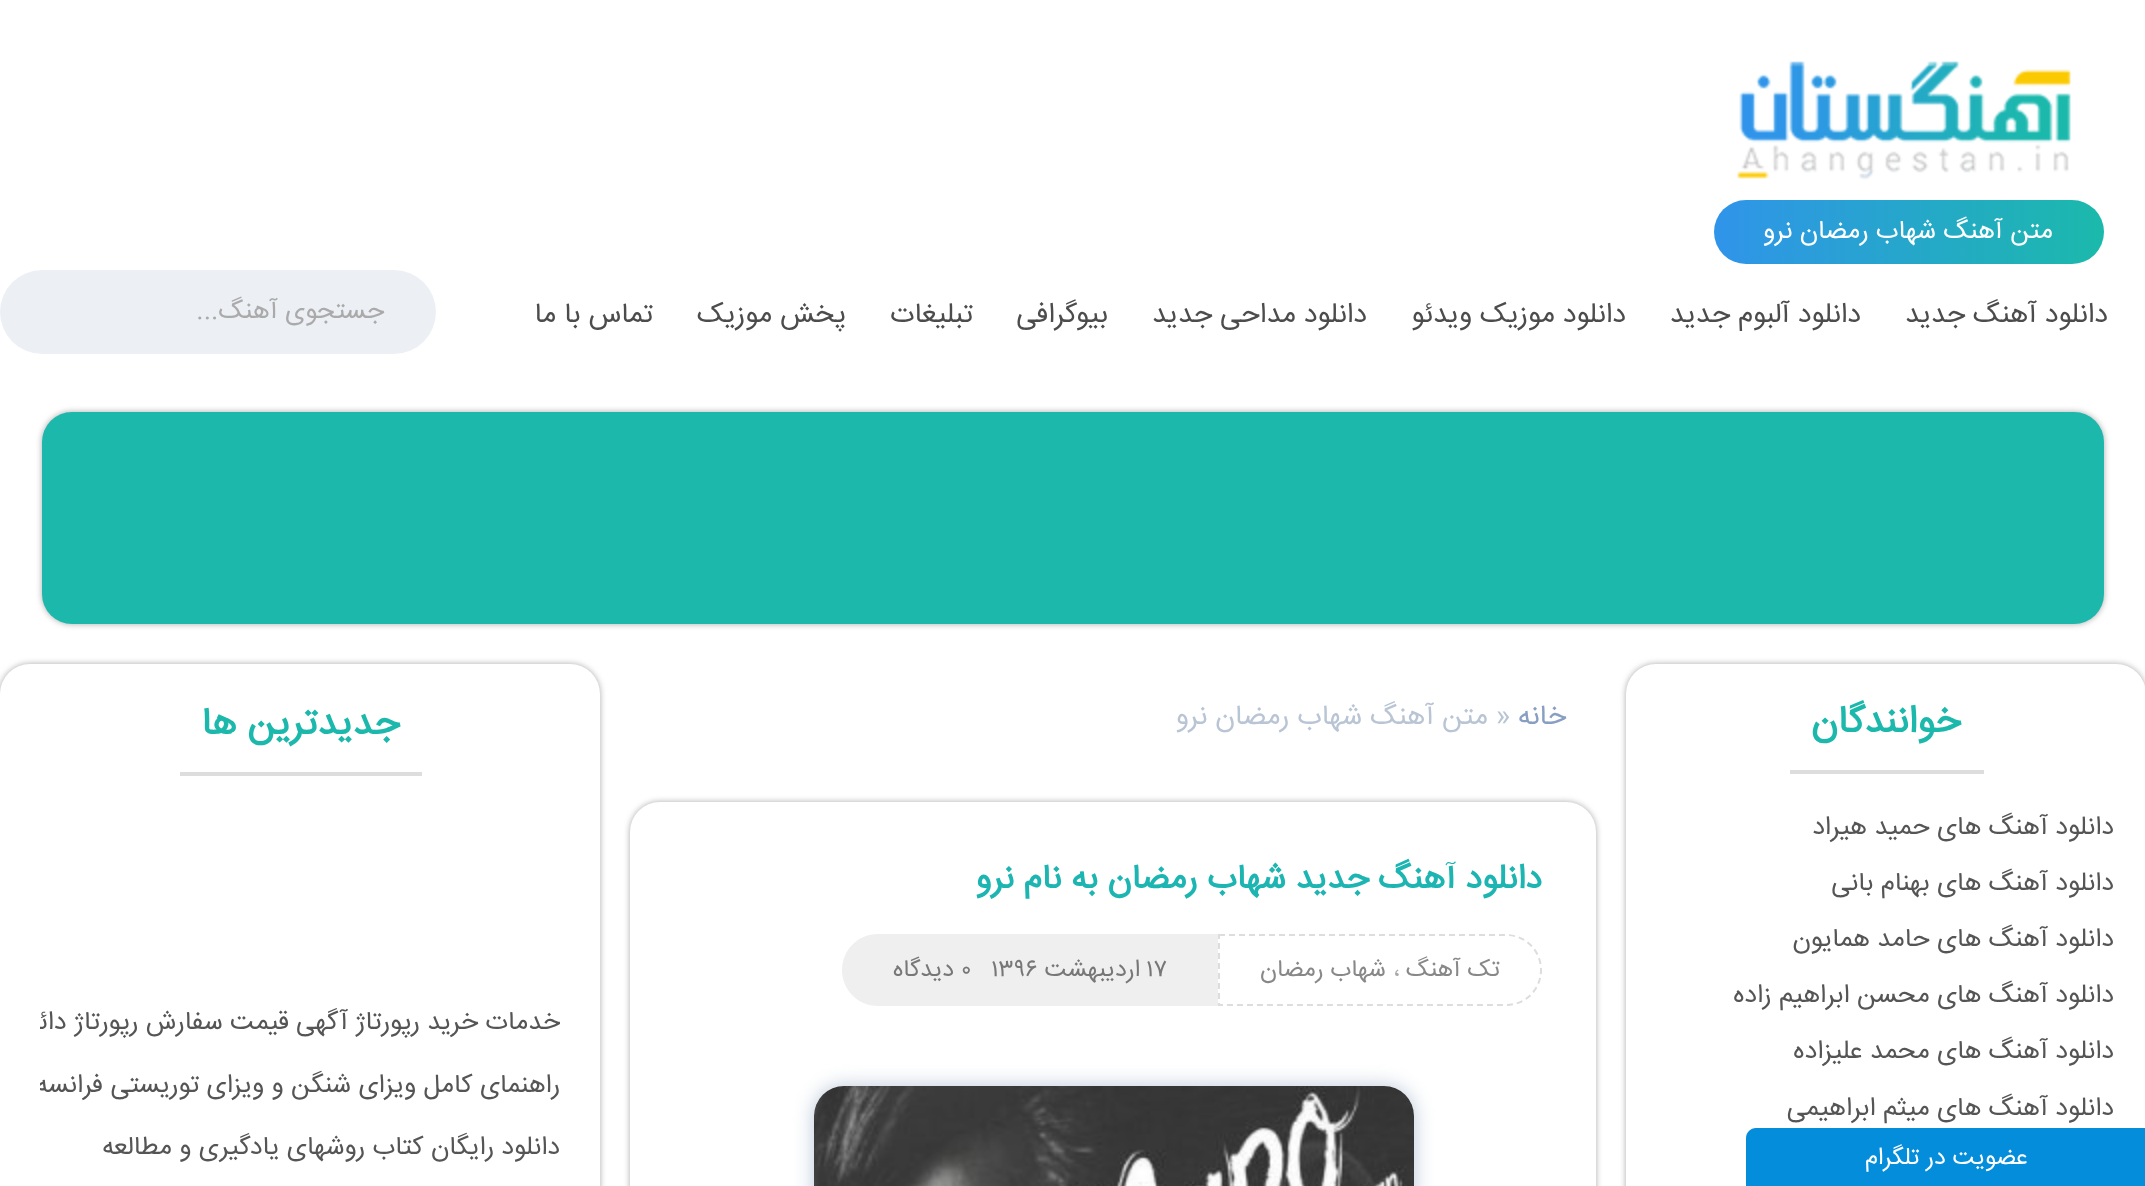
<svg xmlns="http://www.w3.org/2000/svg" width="2145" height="1186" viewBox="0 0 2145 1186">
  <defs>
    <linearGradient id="g1" gradientUnits="userSpaceOnUse" x1="1714" y1="232" x2="2104" y2="232"><stop offset="0" stop-color="#3094ea"/><stop offset="1" stop-color="#1bb9ab"/></linearGradient>
    <clipPath id="clip1"><path d="M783 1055H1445V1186H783ZM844 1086H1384C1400.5 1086 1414 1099.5 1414 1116V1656C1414 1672.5 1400.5 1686 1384 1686H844C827.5 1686 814 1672.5 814 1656V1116C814 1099.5 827.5 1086 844 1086Z" clip-rule="evenodd"/></clipPath>
    <clipPath id="clip2"><path d="M40 994h520v62H40z"/></clipPath>
    <clipPath id="clip3"><path d="M40 1056h520v62H40z"/></clipPath>
  </defs>
  <rect width="100%" height="100%" fill="#fff"/>
  <image x="1737" y="61" width="334" height="119" href="img/1.png"/>
  <rect x="1714" y="200" width="390" height="64" rx="32" fill="url(#g1)"/>
  <rect y="270" width="436" height="84" rx="42" fill="#ecf0f5"/>
  <rect x="42" y="412" width="2062" height="212" rx="30" fill="#aaa" filter="blur(3px)"/>
  <rect x="42" y="412" width="2062" height="212" rx="30" fill="#1cb8ac"/>
  <rect x="1626" y="664" width="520" height="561" rx="30" fill="#aaa" filter="blur(3px)"/>
  <rect x="1626" y="664" width="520" height="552" rx="30" fill="#fff"/>
  <path d="M1790 770h194v4H1790z" fill="#ddd"/>
  <rect y="664" width="600" height="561" rx="30" fill="#aaa" filter="blur(3px)"/>
  <rect y="664" width="600" height="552" rx="30" fill="#fff"/>
  <path d="M180 772h242v4H180z" fill="#ddd"/>
  <rect x="630" y="802" width="966" height="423" rx="30" fill="#aaa" filter="blur(3px)"/>
  <rect x="632" y="804" width="962" height="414" rx="28" fill="#fff" stroke="#fff" stroke-width="4"/>
  <path d="M1219 935H1506C1525.5 935 1541 950.5 1541 970C1541 989.5 1525.5 1005 1506 1005H1219Z" fill="none" stroke="#ddd" stroke-width="2" stroke-dasharray="6 4"/>
  <path d="M878 934H1218V1006H878C858 1006 842 990 842 970C842 950 858 934 878 934Z" fill="#efefef"/>
  <g clip-path="url(#clip1)">
    <rect x="814" y="1086" width="600" height="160" rx="30" fill="#bbc8da" filter="blur(10px)"/>
  </g>
  <image x="814" y="1086" width="600" height="100" href="img/2.png"/>
  <path d="M1756 1128H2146V1186H1746V1138C1746 1132.5 1750.5 1128 1756 1128Z" fill="#048ddb"/>
  <text x="2053" y="238" font-family="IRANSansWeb" font-size="26" direction="rtl" fill="#fff">متن آهنگ شهاب رمضان نرو</text>
  <g font-family="IRANSansWeb" font-size="28" direction="rtl" fill="#4c4c4c">
    <text x="2108" y="322">دانلود آهنگ جدید</text>
    <text x="1861" y="322">دانلود آلبوم جدید</text>
    <text x="1626" y="322">دانلود موزیک ویدئو</text>
    <text x="1367" y="322">دانلود مداحی جدید</text>
    <text x="1108" y="322">بیوگرافی</text>
    <text x="973" y="322">تبلیغات</text>
    <text x="846" y="322">پخش موزیک</text>
    <text x="653" y="322">تماس با ما</text>
  </g>
  <text x="384" y="318" font-family="IRANSansWeb" font-size="26" direction="rtl" fill="#aaa">جستجوی آهنگ...</text>
  <text x="1960" y="732" font-family="IRANSansWeb" font-size="38" font-weight="bold" direction="rtl" fill="#1cb8ac">خوانندگان</text>
  <g font-family="IRANSansWeb" font-size="26" direction="rtl" fill="#555">
    <text x="2114" y="834">دانلود آهنگ های حمید هیراد</text>
    <text x="2114" y="890">دانلود آهنگ های بهنام بانی</text>
    <text x="2114" y="946">دانلود آهنگ های حامد همایون</text>
    <text x="2114" y="1002">دانلود آهنگ های محسن ابراهیم زاده</text>
    <text x="2114" y="1058">دانلود آهنگ های محمد علیزاده</text>
    <text x="2114" y="1115">دانلود آهنگ های میثم ابراهیمی</text>
  </g>
  <text x="1566" y="724" font-family="IRANSansWeb" font-size="28" direction="rtl" fill="#889fc3">خانه</text>
  <text x="1496" y="724" font-family="IRANSansWeb" font-size="28" fill="#b9c5d4">»</text>
  <text x="1488" y="724" font-family="IRANSansWeb" font-size="28" direction="rtl" fill="#b9c5d4">متن آهنگ شهاب رمضان نرو</text>
  <text x="399" y="734" font-family="IRANSansWeb" font-size="38" font-weight="bold" direction="rtl" fill="#1cb8ac">جدیدترین ها</text>
  <g clip-path="url(#clip2)">
    <text x="560" y="1029" font-family="IRANSansWeb" font-size="26" direction="rtl" fill="#555">خدمات خرید رپورتاژ آگهی قیمت سفارش رپورتاژ دائمی معتبر</text>
  </g>
  <g clip-path="url(#clip3)">
    <text x="560" y="1092" font-family="IRANSansWeb" font-size="26" direction="rtl" fill="#555">راهنمای کامل ویزای شنگن و ویزای توریستی فرانسه</text>
  </g>
  <text x="560" y="1154" font-family="IRANSansWeb" font-size="26" direction="rtl" fill="#555">دانلود رایگان کتاب روشهای یادگیری و مطالعه</text>
  <text x="1542" y="888" font-family="IRANSansWeb" font-size="34" font-weight="bold" direction="rtl" fill="#1db5b2">دانلود آهنگ جدید شهاب رمضان به نام نرو</text>
  <text x="1500" y="976" font-family="IRANSansWeb" font-size="24" direction="rtl" fill="#888">تک آهنگ</text>
  <text x="1393" y="976" font-family="IRANSansWeb" font-size="24" fill="#aaa">،</text>
  <text x="1386" y="976" font-family="IRANSansWeb" font-size="24" direction="rtl" fill="#888">شهاب رمضان</text>
  <text x="1146" y="976" font-family="IRANSansWeb" font-size="24" fill="#777">۱۷</text>
  <text x="1140" y="976" font-family="IRANSansWeb" font-size="24" direction="rtl" fill="#777">اردیبهشت</text>
  <g font-family="IRANSansWeb" font-size="24" fill="#777">
    <text x="991" y="976">۱۳۹۶</text>
    <text x="961" y="976">۰</text>
  </g>
  <text x="954" y="976" font-family="IRANSansWeb" font-size="24" direction="rtl" fill="#777">دیدگاه</text>
  <text x="2028" y="1164" font-family="IRANSansWeb" font-size="24" direction="rtl" fill="#fff">عضویت در تلگرام</text>
</svg>
